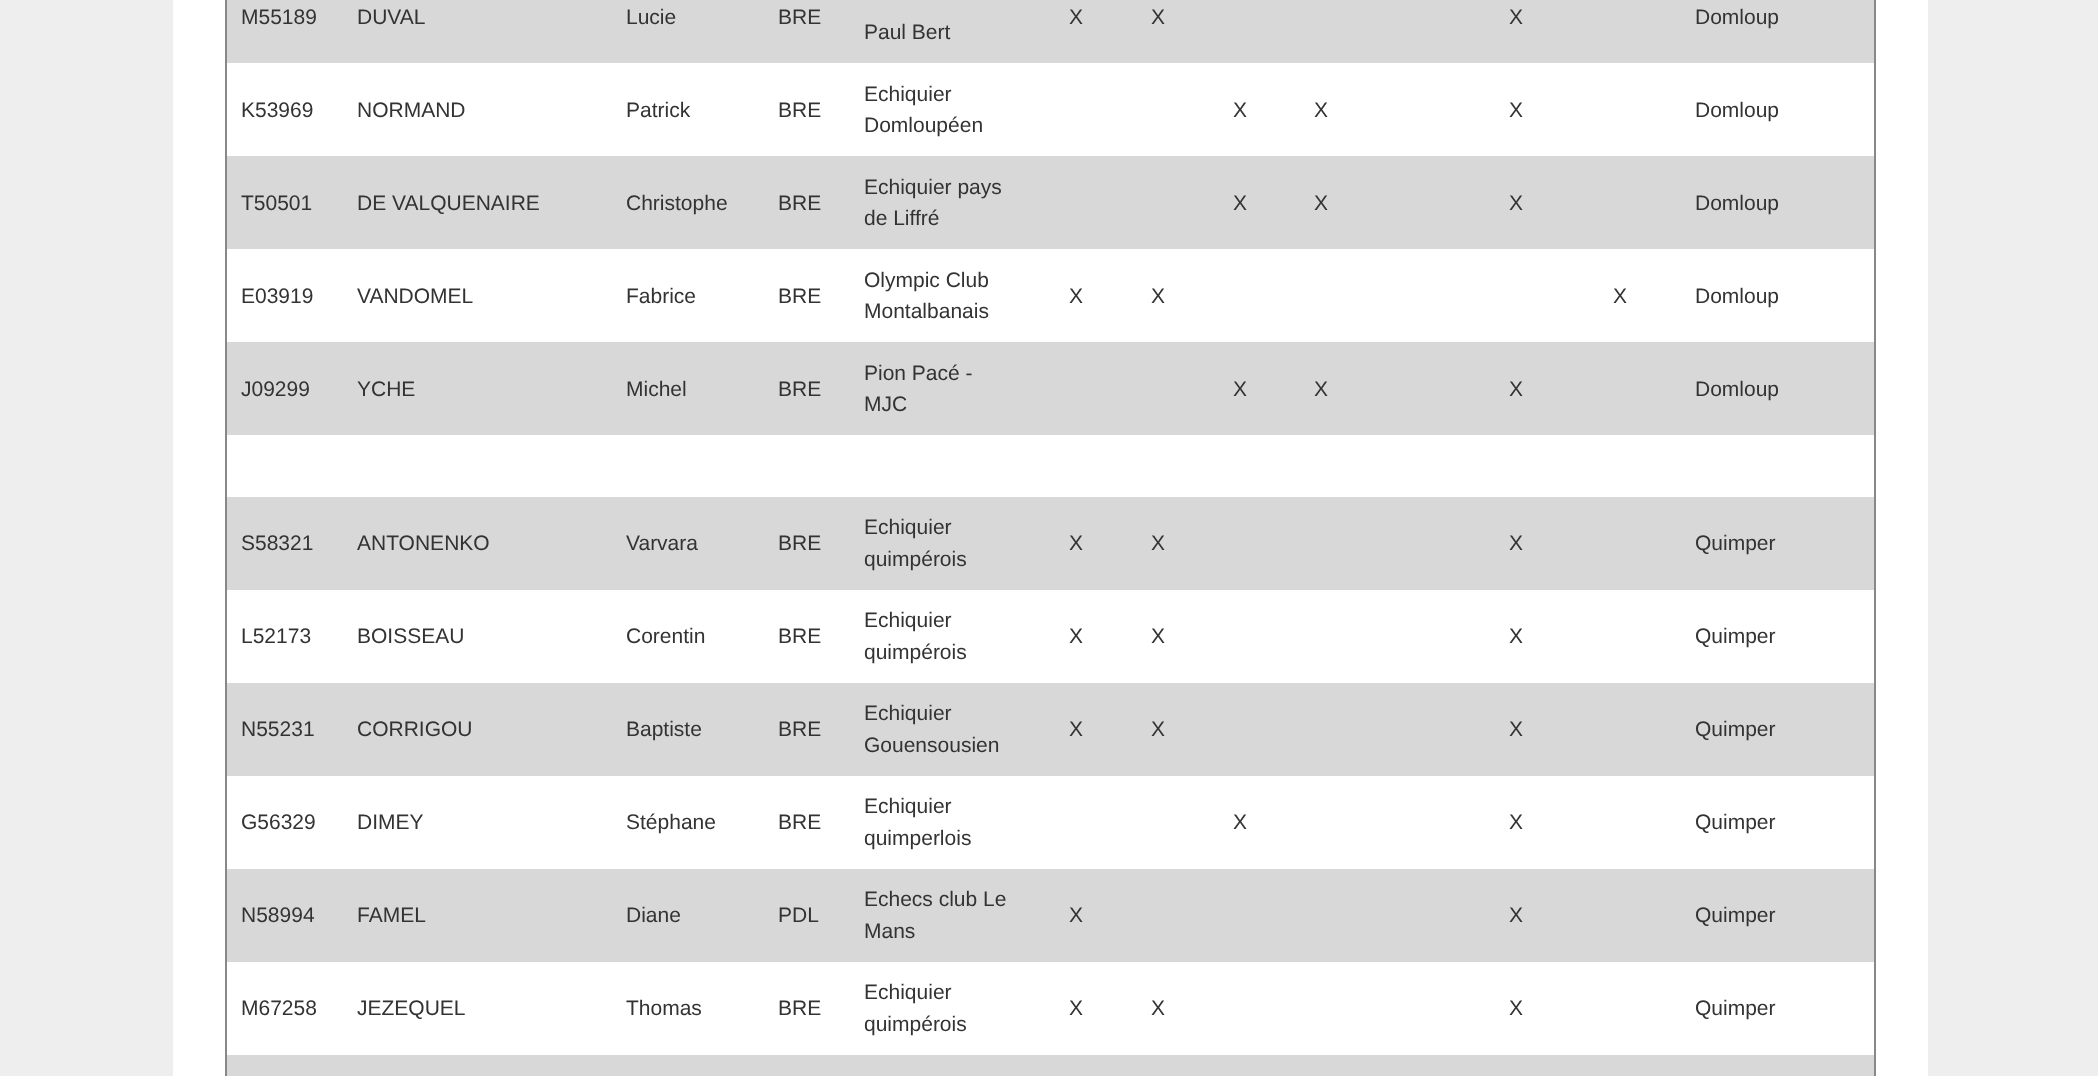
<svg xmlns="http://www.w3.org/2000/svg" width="2098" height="1076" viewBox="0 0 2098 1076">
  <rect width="100%" height="100%" fill="#eee"/>
  <path d="M173 0h1755v1076H173z" fill="#fff"/>
  <path d="M1874 0h2v1076H1874z" fill="#888"/>
  <path d="M225 0h2v1076H225z" fill="#888"/>
  <path d="M227 0h1647v63H227z" fill="#d8d8d8"/>
  <path d="M227 156h1647v93H227z" fill="#d8d8d8"/>
  <path d="M227 342h1647v93H227z" fill="#d8d8d8"/>
  <path d="M227 497h1647v93H227z" fill="#d8d8d8"/>
  <path d="M227 683h1647v93H227z" fill="#d8d8d8"/>
  <path d="M227 869h1647v93H227z" fill="#d8d8d8"/>
  <path d="M227 1055h1647v21H227z" fill="#d8d8d8"/>
  <g font-family="Liberation Sans" font-size="21" fill="#333">
    <text x="241" y="24">M55189</text>
    <text x="357" y="24">DUVAL</text>
    <text x="626" y="24">Lucie</text>
    <text x="778" y="24">BRE</text>
    <text x="1069" y="24">X</text>
    <text x="1151" y="24">X</text>
    <text x="1509" y="24">X</text>
    <text x="1695" y="24">Domloup</text>
    <text x="864" y="39">Paul Bert</text>
    <text x="241" y="117">K53969</text>
    <text x="357" y="117">NORMAND</text>
    <text x="626" y="117">Patrick</text>
    <text x="778" y="117">BRE</text>
    <text x="864" y="101">Echiquier</text>
    <text x="864" y="132">Domloupéen</text>
    <text x="1233" y="117">X</text>
    <text x="1314" y="117">X</text>
    <text x="1509" y="117">X</text>
    <text x="1695" y="117">Domloup</text>
    <text x="241" y="210">T50501</text>
    <text x="357" y="210">DE VALQUENAIRE</text>
    <text x="626" y="210">Christophe</text>
    <text x="778" y="210">BRE</text>
    <text x="864" y="194">Echiquier pays</text>
    <text x="864" y="225">de Liffré</text>
    <text x="1233" y="210">X</text>
    <text x="1314" y="210">X</text>
    <text x="1509" y="210">X</text>
    <text x="1695" y="210">Domloup</text>
    <text x="241" y="303">E03919</text>
    <text x="357" y="303">VANDOMEL</text>
    <text x="626" y="303">Fabrice</text>
    <text x="778" y="303">BRE</text>
    <text x="864" y="287">Olympic Club</text>
    <text x="864" y="318">Montalbanais</text>
    <text x="1069" y="303">X</text>
    <text x="1151" y="303">X</text>
    <text x="1613" y="303">X</text>
    <text x="1695" y="303">Domloup</text>
    <text x="241" y="396">J09299</text>
    <text x="357" y="396">YCHE</text>
    <text x="626" y="396">Michel</text>
    <text x="778" y="396">BRE</text>
    <text x="864" y="380">Pion Pacé -</text>
    <text x="864" y="411">MJC</text>
    <text x="1233" y="396">X</text>
    <text x="1314" y="396">X</text>
    <text x="1509" y="396">X</text>
    <text x="1695" y="396">Domloup</text>
    <text x="241" y="550">S58321</text>
    <text x="357" y="550">ANTONENKO</text>
    <text x="626" y="550">Varvara</text>
    <text x="778" y="550">BRE</text>
    <text x="864" y="534">Echiquier</text>
    <text x="864" y="566">quimpérois</text>
    <text x="1069" y="550">X</text>
    <text x="1151" y="550">X</text>
    <text x="1509" y="550">X</text>
    <text x="1695" y="550">Quimper</text>
    <text x="241" y="643">L52173</text>
    <text x="357" y="643">BOISSEAU</text>
    <text x="626" y="643">Corentin</text>
    <text x="778" y="643">BRE</text>
    <text x="864" y="627">Echiquier</text>
    <text x="864" y="659">quimpérois</text>
    <text x="1069" y="643">X</text>
    <text x="1151" y="643">X</text>
    <text x="1509" y="643">X</text>
    <text x="1695" y="643">Quimper</text>
    <text x="241" y="736">N55231</text>
    <text x="357" y="736">CORRIGOU</text>
    <text x="626" y="736">Baptiste</text>
    <text x="778" y="736">BRE</text>
    <text x="864" y="720">Echiquier</text>
    <text x="864" y="752">Gouensousien</text>
    <text x="1069" y="736">X</text>
    <text x="1151" y="736">X</text>
    <text x="1509" y="736">X</text>
    <text x="1695" y="736">Quimper</text>
    <text x="241" y="829">G56329</text>
    <text x="357" y="829">DIMEY</text>
    <text x="626" y="829">Stéphane</text>
    <text x="778" y="829">BRE</text>
    <text x="864" y="813">Echiquier</text>
    <text x="864" y="845">quimperlois</text>
    <text x="1233" y="829">X</text>
    <text x="1509" y="829">X</text>
    <text x="1695" y="829">Quimper</text>
    <text x="241" y="922">N58994</text>
    <text x="357" y="922">FAMEL</text>
    <text x="626" y="922">Diane</text>
    <text x="778" y="922">PDL</text>
    <text x="864" y="906">Echecs club Le</text>
    <text x="864" y="938">Mans</text>
    <text x="1069" y="922">X</text>
    <text x="1509" y="922">X</text>
    <text x="1695" y="922">Quimper</text>
    <text x="241" y="1015">M67258</text>
    <text x="357" y="1015">JEZEQUEL</text>
    <text x="626" y="1015">Thomas</text>
    <text x="778" y="1015">BRE</text>
    <text x="864" y="999">Echiquier</text>
    <text x="864" y="1031">quimpérois</text>
    <text x="1069" y="1015">X</text>
    <text x="1151" y="1015">X</text>
    <text x="1509" y="1015">X</text>
    <text x="1695" y="1015">Quimper</text>
  </g>
</svg>
